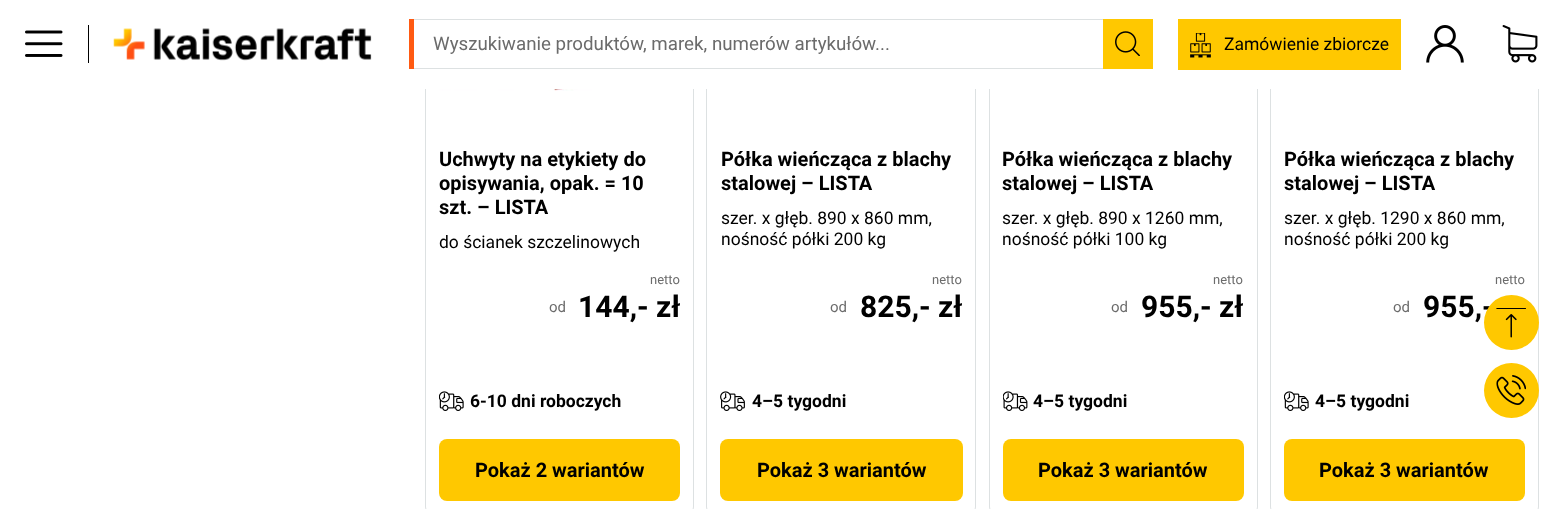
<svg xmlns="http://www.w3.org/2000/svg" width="1563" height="509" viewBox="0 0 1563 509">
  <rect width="100%" height="100%" fill="#fff"/>
  <rect x="425.5" y="-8.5" width="268" height="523" rx="7.5" fill="none" stroke="#dde1e2"/>
  <rect x="706.5" y="-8.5" width="269" height="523" rx="7.5" fill="none" stroke="#dde1e2"/>
  <rect x="989.5" y="-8.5" width="268" height="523" rx="7.5" fill="none" stroke="#dde1e2"/>
  <rect x="1270.5" y="-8.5" width="268" height="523" rx="7.5" fill="none" stroke="#dde1e2"/>
  <path d="M425 0h1114v89H425z" fill="#fff"/>
  <path d="M88 25h1v38H88z" fill="#000"/>
  <image x="25" y="30" width="38" height="27" href="img/1.png"/>
  <image x="113" y="28" width="259" height="33" href="img/2.png"/>
  <path d="M409 19h694v1H409z" fill="#dde1e2"/>
  <path d="M409 68h694v1H409z" fill="#dde1e2"/>
  <path d="M409 19h5v50H409z" fill="#ff5a12"/>
  <path d="M1103 19h50v50H1103z" fill="#ffc800"/>
  <image x="1115" y="31" width="25" height="25" href="img/3.png"/>
  <path d="M1178 19h223v51H1178z" fill="#ffc800"/>
  <image x="1190" y="33" width="21" height="25" href="img/4.png"/>
  <image x="1426" y="25" width="38" height="38" href="img/5.png"/>
  <image x="1502" y="25" width="36" height="38" href="img/6.png"/>
  <image x="439" y="89" width="216" height="2" href="img/7.png"/>
  <image x="439" y="391" width="25" height="20" href="img/8.png"/>
  <rect x="439" y="439" width="241" height="62" rx="8" fill="#ffc800"/>
  <image x="720" y="391" width="25" height="20" href="img/9.png"/>
  <rect x="720" y="439" width="243" height="62" rx="8" fill="#ffc800"/>
  <image x="1003" y="391" width="25" height="20" href="img/10.png"/>
  <rect x="1003" y="439" width="241" height="62" rx="8" fill="#ffc800"/>
  <image x="1284" y="391" width="25" height="20" href="img/8.png"/>
  <rect x="1284" y="439" width="241" height="62" rx="8" fill="#ffc800"/>
  <circle cx="1511.5" cy="390.5" r="27.5" fill="#ffc800"/>
  <image x="1496" y="375" width="30" height="30" href="img/12.png"/>
  <text x="433" y="50" font-family="Roboto" font-size="18.75" fill="#6b6b6b">Wyszukiwanie produktów, marek, numerów artykułów...</text>
  <text x="1224" y="50" font-family="Roboto" font-size="17.5" fill="#000">Zamówienie zbiorcze</text>
  <g font-family="Roboto" font-size="20" font-weight="bold" fill="#000">
    <text x="439" y="166">Uchwyty na etykiety do</text>
    <text x="439" y="190">opisywania, opak. = 10</text>
    <text x="439" y="214">szt. – LISTA</text>
  </g>
  <text x="439" y="248" font-family="Roboto" font-size="17.5" fill="#000">do ścianek szczelinowych</text>
  <text x="650" y="284" font-family="Roboto" font-size="13" fill="#6b6b6b">netto</text>
  <text x="549" y="312" font-family="Roboto" font-size="15" fill="#6b6b6b">od</text>
  <text x="578" y="317" font-family="Roboto" font-size="30" font-weight="bold" fill="#000">144,- zł</text>
  <text x="470" y="407" font-family="Roboto" font-size="17.5" font-weight="bold" fill="#000">6-10 dni roboczych</text>
  <g font-family="Roboto" font-size="20" font-weight="bold" fill="#000">
    <text x="475" y="477">Pokaż 2 wariantów</text>
    <text x="721" y="166">Półka wieńcząca z blachy</text>
    <text x="721" y="190">stalowej – LISTA</text>
  </g>
  <g font-family="Roboto" font-size="17.5" fill="#000">
    <text x="721" y="224">szer. x głęb. 890 x 860 mm,</text>
    <text x="721" y="245">nośność półki 200 kg</text>
  </g>
  <text x="932" y="284" font-family="Roboto" font-size="13" fill="#6b6b6b">netto</text>
  <text x="830" y="312" font-family="Roboto" font-size="15" fill="#6b6b6b">od</text>
  <text x="860" y="317" font-family="Roboto" font-size="30" font-weight="bold" fill="#000">825,- zł</text>
  <text x="752" y="407" font-family="Roboto" font-size="17.5" font-weight="bold" fill="#000">4–5 tygodni</text>
  <g font-family="Roboto" font-size="20" font-weight="bold" fill="#000">
    <text x="757" y="477">Pokaż 3 wariantów</text>
    <text x="1002" y="166">Półka wieńcząca z blachy</text>
    <text x="1002" y="190">stalowej – LISTA</text>
  </g>
  <g font-family="Roboto" font-size="17.5" fill="#000">
    <text x="1002" y="224">szer. x głęb. 890 x 1260 mm,</text>
    <text x="1002" y="245">nośność półki 100 kg</text>
  </g>
  <text x="1213" y="284" font-family="Roboto" font-size="13" fill="#6b6b6b">netto</text>
  <text x="1111" y="312" font-family="Roboto" font-size="15" fill="#6b6b6b">od</text>
  <text x="1141" y="317" font-family="Roboto" font-size="30" font-weight="bold" fill="#000">955,- zł</text>
  <text x="1033" y="407" font-family="Roboto" font-size="17.5" font-weight="bold" fill="#000">4–5 tygodni</text>
  <g font-family="Roboto" font-size="20" font-weight="bold" fill="#000">
    <text x="1038" y="477">Pokaż 3 wariantów</text>
    <text x="1284" y="166">Półka wieńcząca z blachy</text>
    <text x="1284" y="190">stalowej – LISTA</text>
  </g>
  <g font-family="Roboto" font-size="17.5" fill="#000">
    <text x="1284" y="224">szer. x głęb. 1290 x 860 mm,</text>
    <text x="1284" y="245">nośność półki 200 kg</text>
  </g>
  <text x="1495" y="284" font-family="Roboto" font-size="13" fill="#6b6b6b">netto</text>
  <text x="1393" y="312" font-family="Roboto" font-size="15" fill="#6b6b6b">od</text>
  <text x="1423" y="317" font-family="Roboto" font-size="30" font-weight="bold" fill="#000">955,-</text>
  <text x="1315" y="407" font-family="Roboto" font-size="17.5" font-weight="bold" fill="#000">4–5 tygodni</text>
  <text x="1319" y="477" font-family="Roboto" font-size="20" font-weight="bold" fill="#000">Pokaż 3 wariantów</text>
  <circle cx="1511.5" cy="322.5" r="27.5" fill="#ffc800"/>
  <image x="1496" y="308" width="30" height="30" href="img/11.png"/>
</svg>
